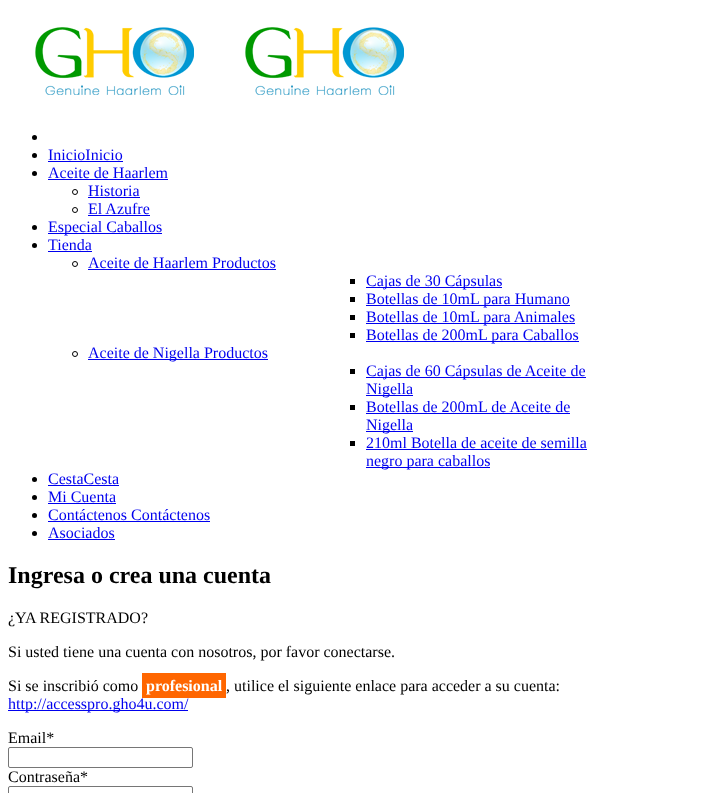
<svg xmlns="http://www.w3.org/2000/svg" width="708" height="793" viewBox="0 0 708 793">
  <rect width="100%" height="100%" fill="#fff"/>
  <image x="35" y="27" width="159" height="68" href="img/1.png"/>
  <image x="245" y="27" width="159" height="68" href="img/1.png"/>
  <circle cx="34.5" cy="137.5" r="2.5" fill="#000"/>
  <circle cx="34.5" cy="155.5" r="2.5" fill="#000"/>
  <path d="M48 161h75v1H48z" fill="#00e"/>
  <circle cx="34.5" cy="173.5" r="2.5" fill="#000"/>
  <path d="M48 179h120v1H48z" fill="#00e"/>
  <circle cx="75" cy="192" r="2.5" fill="none" stroke="#000"/>
  <path d="M88 197h52v1H88z" fill="#00e"/>
  <circle cx="75" cy="210" r="2.5" fill="none" stroke="#000"/>
  <path d="M88 215h62v1H88z" fill="#00e"/>
  <circle cx="34.5" cy="227.5" r="2.5" fill="#000"/>
  <path d="M48 233h114v1H48z" fill="#00e"/>
  <circle cx="34.5" cy="245.5" r="2.5" fill="#000"/>
  <path d="M48 251h44v1H48z" fill="#00e"/>
  <circle cx="75" cy="264" r="2.5" fill="none" stroke="#000"/>
  <path d="M88 269h188v1H88z" fill="#00e"/>
  <path d="M350 279h5v5H350z" fill="#000"/>
  <path d="M366 287h136v1H366z" fill="#00e"/>
  <path d="M350 297h5v5H350z" fill="#000"/>
  <path d="M366 305h204v1H366z" fill="#00e"/>
  <path d="M350 315h5v5H350z" fill="#000"/>
  <path d="M366 323h209v1H366z" fill="#00e"/>
  <path d="M350 333h5v5H350z" fill="#000"/>
  <path d="M366 341h213v1H366z" fill="#00e"/>
  <circle cx="75" cy="354" r="2.5" fill="none" stroke="#000"/>
  <path d="M88 359h180v1H88z" fill="#00e"/>
  <path d="M350 369h5v5H350z" fill="#000"/>
  <path d="M366 377h220v1H366z" fill="#00e"/>
  <path d="M366 395h47v1H366z" fill="#00e"/>
  <path d="M350 405h5v5H350z" fill="#000"/>
  <path d="M366 413h204v1H366z" fill="#00e"/>
  <path d="M366 431h47v1H366z" fill="#00e"/>
  <path d="M350 441h5v5H350z" fill="#000"/>
  <path d="M366 449h221v1H366z" fill="#00e"/>
  <path d="M366 467h124v1H366z" fill="#00e"/>
  <circle cx="34.5" cy="479.5" r="2.5" fill="#000"/>
  <path d="M48 485h71v1H48z" fill="#00e"/>
  <circle cx="34.5" cy="497.5" r="2.5" fill="#000"/>
  <path d="M48 503h68v1H48z" fill="#00e"/>
  <circle cx="34.5" cy="515.5" r="2.5" fill="#000"/>
  <path d="M48 521h162v1H48z" fill="#00e"/>
  <circle cx="34.5" cy="533.5" r="2.5" fill="#000"/>
  <path d="M48 539h67v1H48z" fill="#00e"/>
  <path d="M142 673h84v25H142z" fill="#f60"/>
  <path d="M8 710h180v1H8z" fill="#00e"/>
  <rect x="8.5" y="747.5" width="184" height="20" rx="1.5" fill="none" stroke="#767676"/>
  <rect x="8.5" y="786.5" width="184" height="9" rx="1.5" fill="none" stroke="#767676"/>
  <g font-family="Liberation Serif" font-size="16" fill="#00e">
    <text x="48" y="160">InicioInicio</text>
    <text x="48" y="178">Aceite de Haarlem</text>
    <text x="88" y="196">Historia</text>
    <text x="88" y="214">El Azufre</text>
    <text x="48" y="232">Especial Caballos</text>
    <text x="48" y="250">Tienda</text>
    <text x="88" y="268">Aceite de Haarlem Productos</text>
    <text x="366" y="286">Cajas de 30 Cápsulas</text>
    <text x="366" y="304">Botellas de 10mL para Humano</text>
    <text x="366" y="322">Botellas de 10mL para Animales</text>
    <text x="366" y="340">Botellas de 200mL para Caballos</text>
    <text x="88" y="358">Aceite de Nigella Productos</text>
    <text x="366" y="376">Cajas de 60 Cápsulas de Aceite de</text>
    <text x="366" y="394">Nigella</text>
    <text x="366" y="412">Botellas de 200mL de Aceite de</text>
    <text x="366" y="430">Nigella</text>
    <text x="366" y="448">210ml Botella de aceite de semilla</text>
    <text x="366" y="466">negro para caballos</text>
    <text x="48" y="484">CestaCesta</text>
    <text x="48" y="502">Mi Cuenta</text>
    <text x="48" y="520">Contáctenos Contáctenos</text>
    <text x="48" y="538">Asociados</text>
  </g>
  <text x="8" y="583" font-family="Liberation Serif" font-size="24" font-weight="bold" fill="#000">Ingresa o crea una cuenta</text>
  <g font-family="Liberation Serif" font-size="16" fill="#000">
    <text x="8" y="623">¿YA REGISTRADO?</text>
    <text x="8" y="657">Si usted tiene una cuenta con nosotros, por favor conectarse.</text>
    <text x="8" y="691">Si se inscribió como</text>
  </g>
  <text x="146" y="691" font-family="Liberation Serif" font-size="16" font-weight="bold" fill="#fff">profesional</text>
  <text x="226" y="691" font-family="Liberation Serif" font-size="16" fill="#000">, utilice el siguiente enlace para acceder a su cuenta:</text>
  <text x="8" y="709" font-family="Liberation Serif" font-size="16" fill="#00e">http://accesspro.gho4u.com/</text>
  <g font-family="Liberation Serif" font-size="16" fill="#000">
    <text x="8" y="743">Email*</text>
    <text x="8" y="782">Contraseña*</text>
  </g>
</svg>
